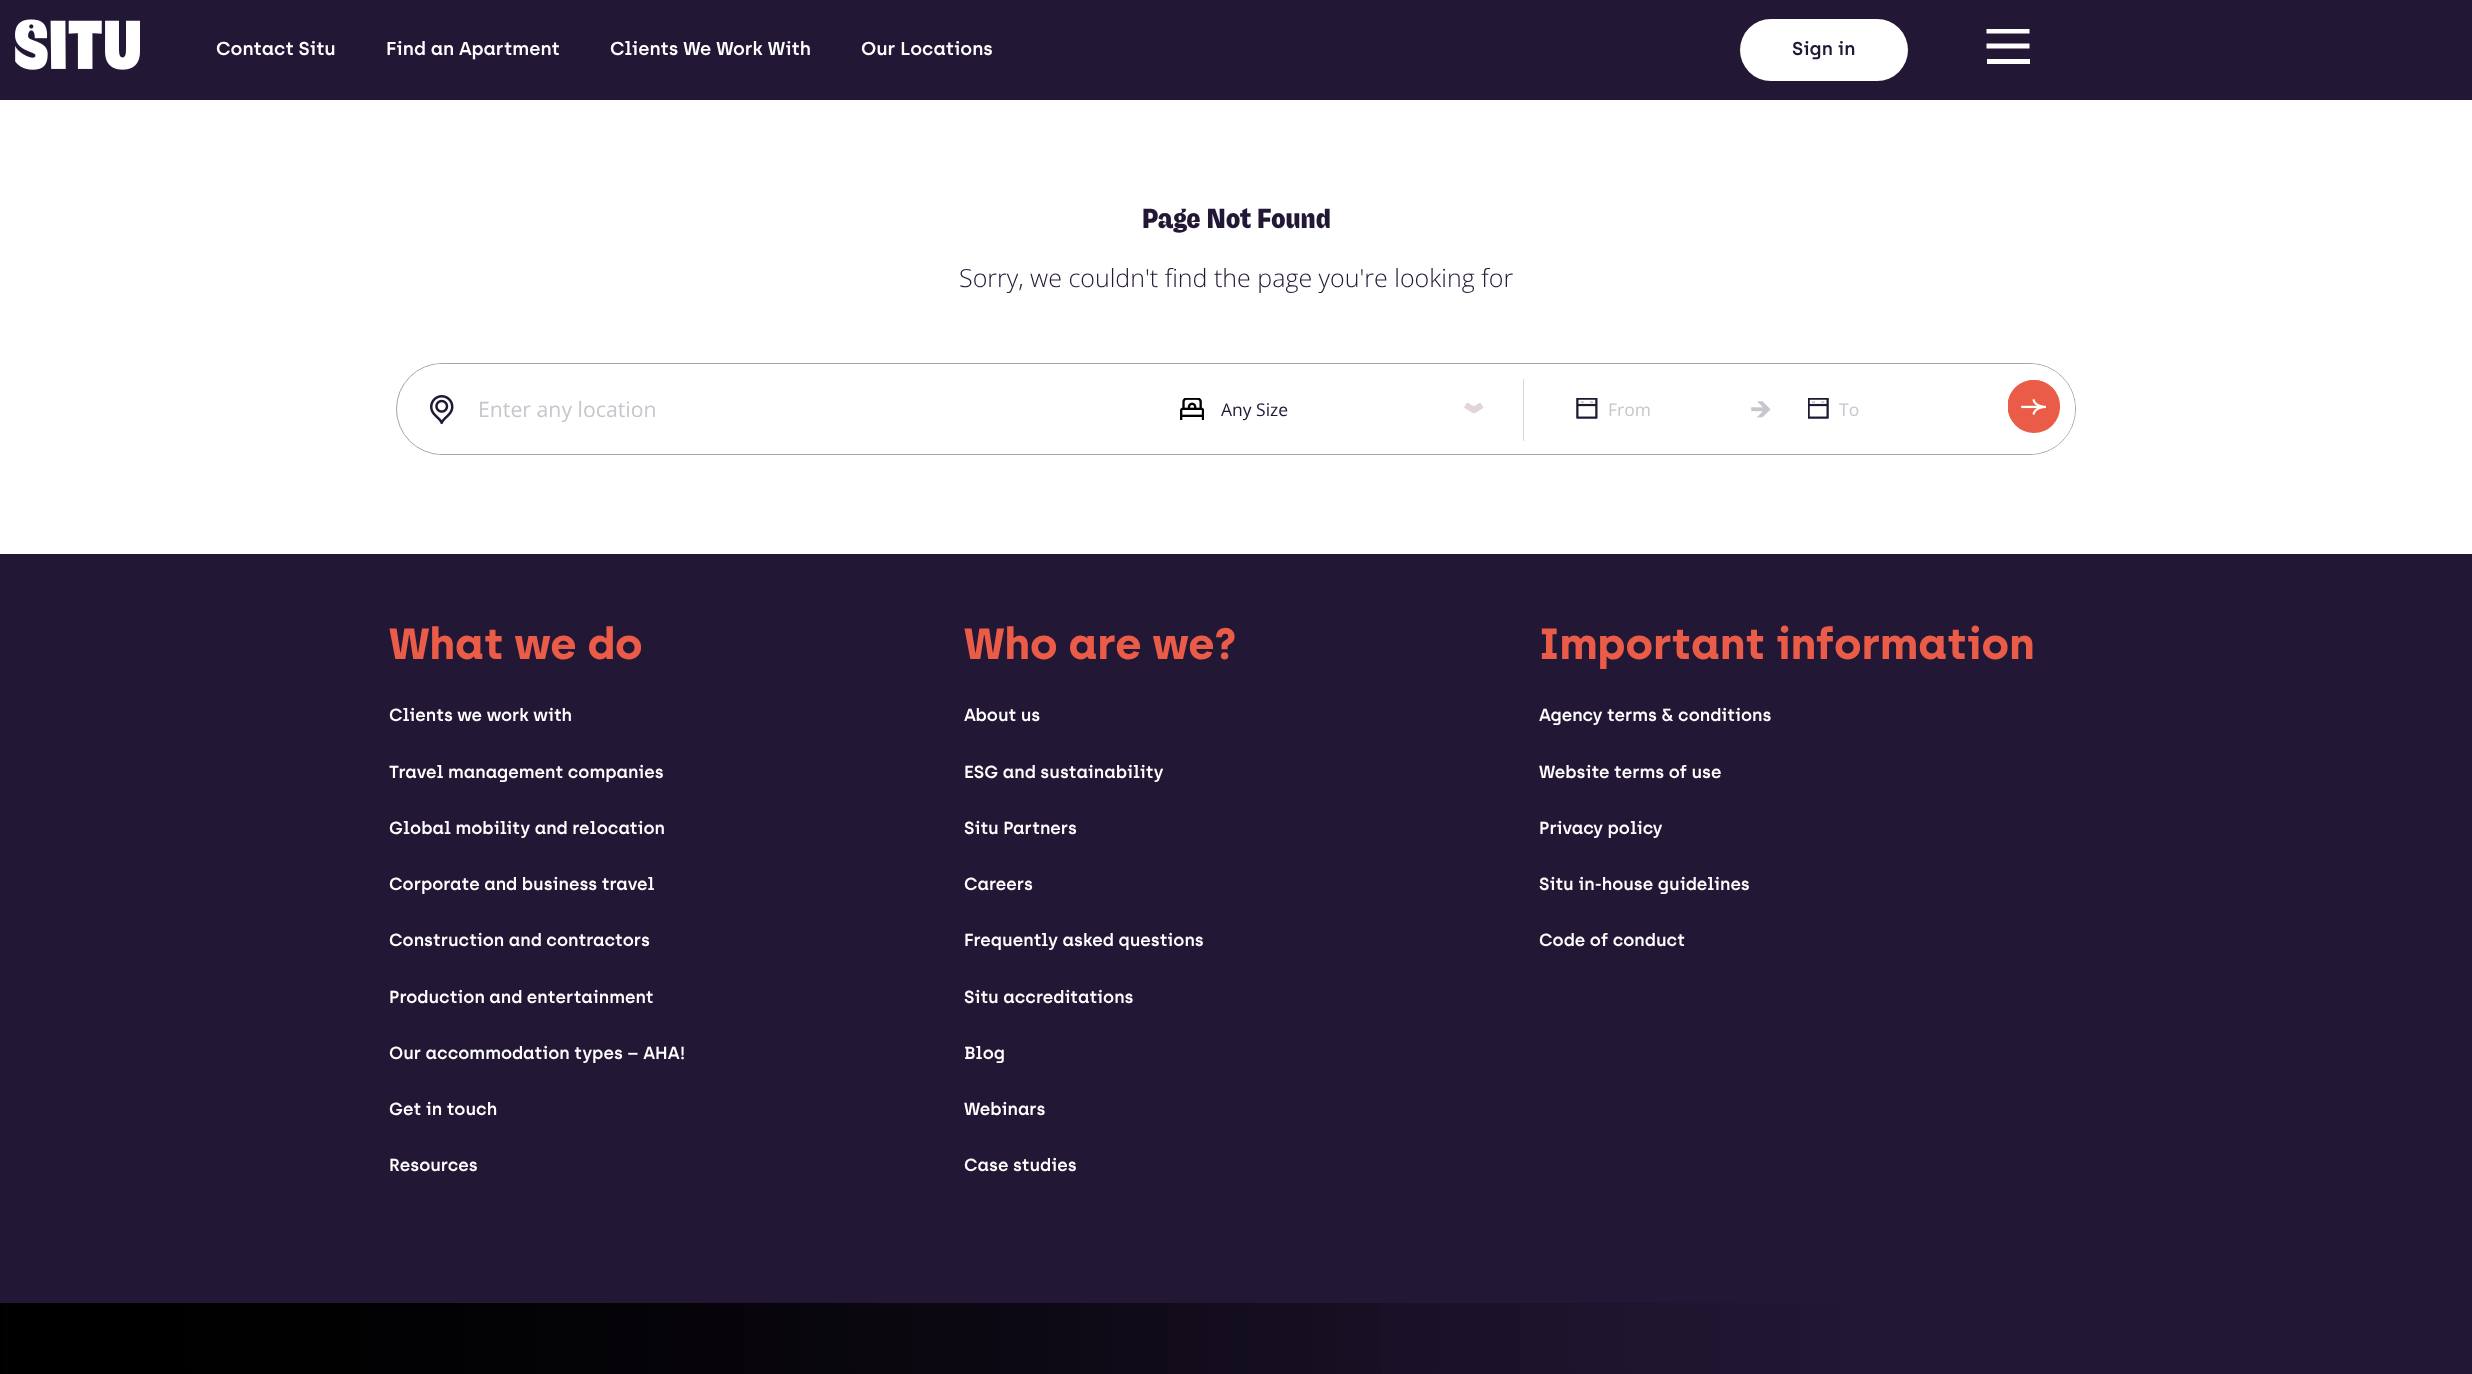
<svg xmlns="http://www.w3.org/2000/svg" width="2472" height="1374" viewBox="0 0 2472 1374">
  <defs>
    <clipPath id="clip1"><path d="M1986 29h44v35H1986z"/></clipPath>
    <clipPath id="clip2"><path d="M1464 403h20v11H1464z"/></clipPath>
    <linearGradient id="g1" gradientUnits="userSpaceOnUse" x1="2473" y1="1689" x2="0" y2="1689"><stop offset="0.25" stop-color="#221734"/><stop offset="1" stop-color="#000"/></linearGradient>
    <linearGradient id="g2" gradientUnits="userSpaceOnUse" x1="0" y1="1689" x2="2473" y2="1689"><stop offset="0" stop-color="#000"/><stop offset="0.6" stop-color="#000" stop-opacity="0"/></linearGradient>
  </defs>
  <rect width="100%" height="100%" fill="#fff"/>
  <path d="M0 0h2472v100H0z" fill="#221734"/>
  <image x="15" y="19" width="125" height="51" href="img/1.png"/>
  <rect x="1740" y="19" width="168" height="62" rx="31" fill="#fff"/>
  <g clip-path="url(#clip1)">
    <path d="M1986.5 31H2029.5" fill="none" stroke="#fff" stroke-width="5"/>
  </g>
  <path d="M1986.5 46H2029.5" fill="none" stroke="#fff" stroke-width="5"/>
  <path d="M1987 59h43v5H1987z" fill="#fff"/>
  <rect x="396.5" y="363.5" width="1679" height="91" rx="45.5" fill="none" stroke="#af9fa7"/>
  <rect x="398" y="364" width="1677" height="90" rx="45" fill="#fff"/>
  <image x="430" y="395" width="24" height="30" href="img/2.png"/>
  <image x="1180" y="398" width="24" height="22" href="img/3.png"/>
  <g clip-path="url(#clip2)">
    <path d="M1465.5 405L1474 410L1482 405" fill="none" stroke="#e2d4db" stroke-width="6.2"/>
  </g>
  <path d="M1523 379h1v62H1523z" fill="#e2d4db"/>
  <image x="1576" y="398" width="22" height="21" href="img/4.png"/>
  <image x="1751" y="401" width="20" height="17" href="img/5.png"/>
  <image x="1808" y="398" width="21" height="21" href="img/6.png"/>
  <rect x="2008" y="380" width="52" height="53" rx="26" fill="#ea5c48"/>
  <image x="2008" y="380" width="52" height="48" href="img/7.png"/>
  <path d="M0 554h2472v749H0z" fill="#221734"/>
  <path d="M9 1303h2463v71H9z" fill="url(#g1)"/>
  <path d="M0 1303h1382v71H0z" fill="url(#g2)"/>
  <g font-family="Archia" font-size="18.75" font-weight="600" fill="#fff">
    <text x="216" y="55">Contact Situ</text>
    <text x="386" y="55">Find an Apartment</text>
    <text x="610" y="55">Clients We Work With</text>
    <text x="861" y="55">Our Locations</text>
  </g>
  <text x="1792" y="55" font-family="Archia" font-size="18.75" font-weight="600" fill="#221734">Sign in</text>
  <text x="1142" y="228" font-family="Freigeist" font-size="27.5" font-weight="900" fill="#221734">Page Not Found</text>
  <text x="959" y="287" font-family="Open Sans" font-size="25" font-weight="300" fill="#221734">Sorry, we couldn't find the page you're looking for</text>
  <text x="478" y="417" font-family="Open Sans" font-size="21.25" fill="#c8c5cc">Enter any location</text>
  <text x="1221" y="416" font-family="Open Sans" font-size="17.5" fill="#221734">Any Size</text>
  <g font-family="Open Sans" font-size="17.5" fill="#c8c5cc">
    <text x="1608" y="416">From</text>
    <text x="1839" y="416">To</text>
  </g>
  <text x="389" y="659" font-family="Archia" font-size="43.75" font-weight="bold" fill="#ea5c48">What we do</text>
  <g font-family="Archia" font-size="17.5" font-weight="600" fill="#fff">
    <text x="389" y="721">Clients we work with</text>
    <text x="389" y="778">Travel management companies</text>
    <text x="389" y="834">Global mobility and relocation</text>
    <text x="389" y="890">Corporate and business travel</text>
    <text x="389" y="946">Construction and contractors</text>
    <text x="389" y="1003">Production and entertainment</text>
    <text x="389" y="1059">Our accommodation types – AHA!</text>
    <text x="389" y="1115">Get in touch</text>
    <text x="389" y="1171">Resources</text>
  </g>
  <text x="964" y="659" font-family="Archia" font-size="43.75" font-weight="bold" fill="#ea5c48">Who are we?</text>
  <g font-family="Archia" font-size="17.5" font-weight="600" fill="#fff">
    <text x="964" y="721">About us</text>
    <text x="964" y="778">ESG and sustainability</text>
    <text x="964" y="834">Situ Partners</text>
    <text x="964" y="890">Careers</text>
    <text x="964" y="946">Frequently asked questions</text>
    <text x="964" y="1003">Situ accreditations</text>
    <text x="964" y="1059">Blog</text>
    <text x="964" y="1115">Webinars</text>
    <text x="964" y="1171">Case studies</text>
  </g>
  <text x="1539" y="659" font-family="Archia" font-size="43.75" font-weight="bold" fill="#ea5c48">Important information</text>
  <g font-family="Archia" font-size="17.5" font-weight="600" fill="#fff">
    <text x="1539" y="721">Agency terms &amp; conditions</text>
    <text x="1539" y="778">Website terms of use</text>
    <text x="1539" y="834">Privacy policy</text>
    <text x="1539" y="890">Situ in-house guidelines</text>
    <text x="1539" y="946">Code of conduct</text>
  </g>
</svg>
